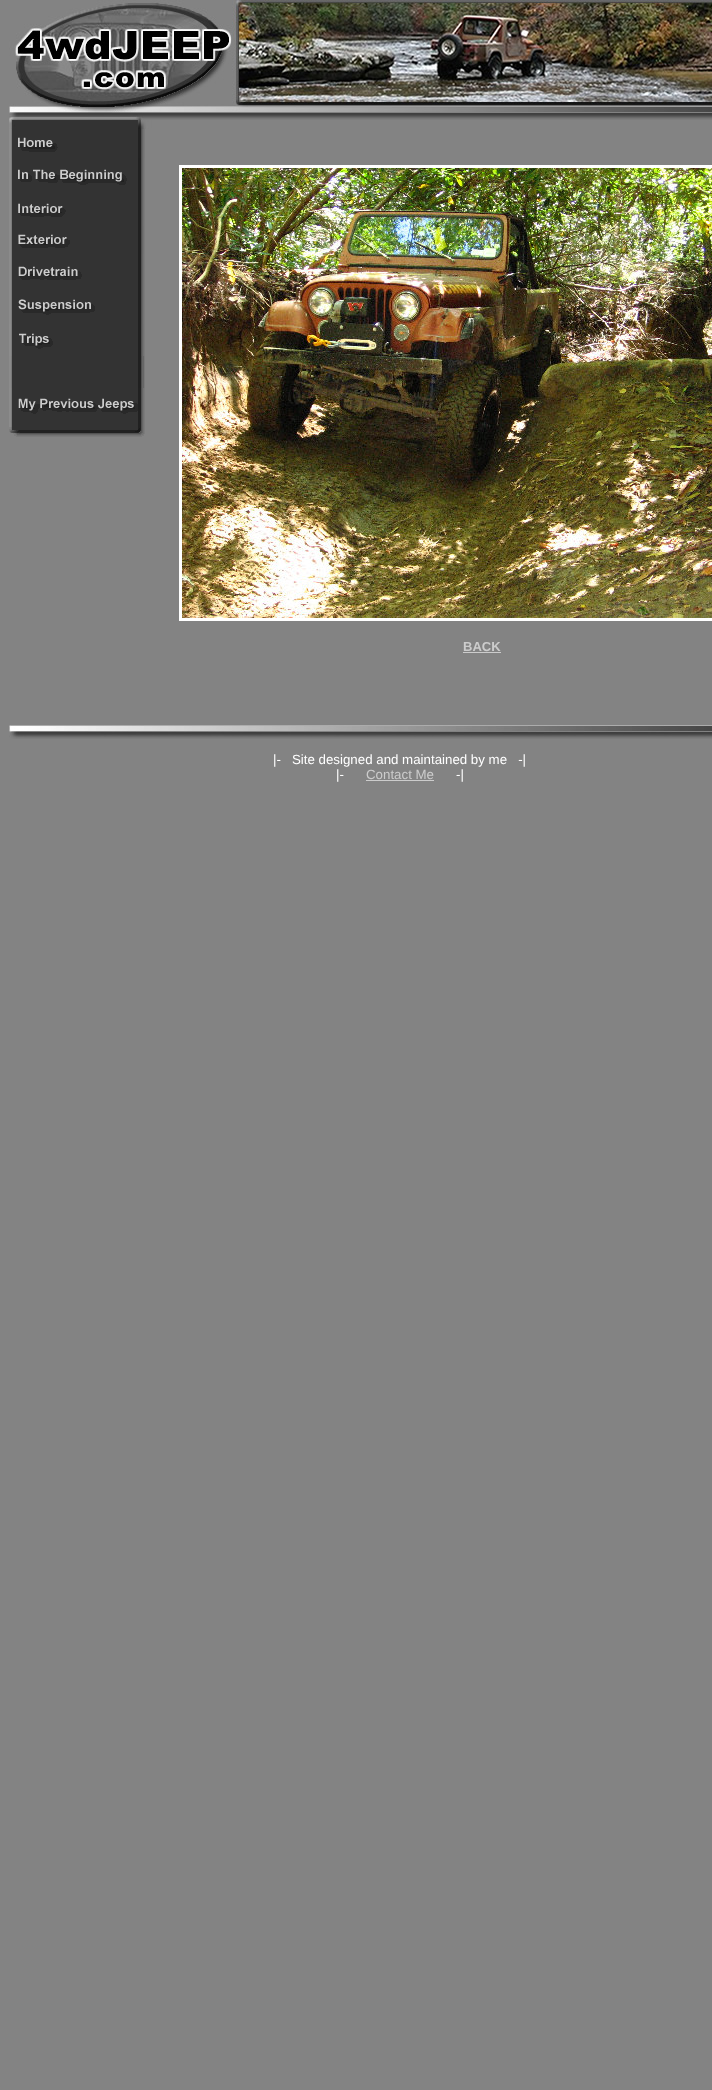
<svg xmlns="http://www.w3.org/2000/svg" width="712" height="2090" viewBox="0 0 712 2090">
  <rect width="100%" height="100%" fill="#838383"/>
  <image x="9" y="0" width="703" height="129" href="img/1.png"/>
  <image x="9" y="158" width="136" height="34" href="img/2.png"/>
  <image x="9" y="192" width="136" height="34" href="img/3.png"/>
  <image x="9" y="226" width="136" height="28" href="img/4.png"/>
  <image x="9" y="254" width="136" height="36" href="img/5.png"/>
  <image x="9" y="290" width="136" height="34" href="img/6.png"/>
  <image x="9" y="324" width="136" height="32" href="img/7.png"/>
  <image x="9" y="356" width="136" height="32" href="img/8.png"/>
  <image x="9" y="388" width="136" height="49" href="img/9.png"/>
  <image x="9" y="129" width="136" height="29" href="img/10.png"/>
  <path d="M180.5 166.5h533v453H180.5z" fill="none" stroke="#fff" stroke-width="3"/>
  <image x="182" y="168" width="530" height="450" href="img/11.png"/>
  <path d="M463 652h38v1H463z" fill="#ccc"/>
  <image x="9" y="725" width="703" height="14" href="img/12.png"/>
  <path d="M366 780h68v1H366z" fill="#ccc"/>
  <text x="463" y="651" font-family="Liberation Sans" font-size="13" font-weight="bold" fill="#ccc">BACK</text>
  <g font-family="Liberation Sans" font-size="13.3" fill="#fff">
    <text x="273" y="764" xml:space="preserve">|-   Site designed and maintained by me   -|</text>
    <text x="336" y="779">|-</text>
  </g>
  <text x="366" y="779" font-family="Liberation Sans" font-size="13.3" fill="#ccc">Contact Me</text>
  <text x="456" y="779" font-family="Liberation Sans" font-size="13.3" fill="#fff">-|</text>
</svg>
